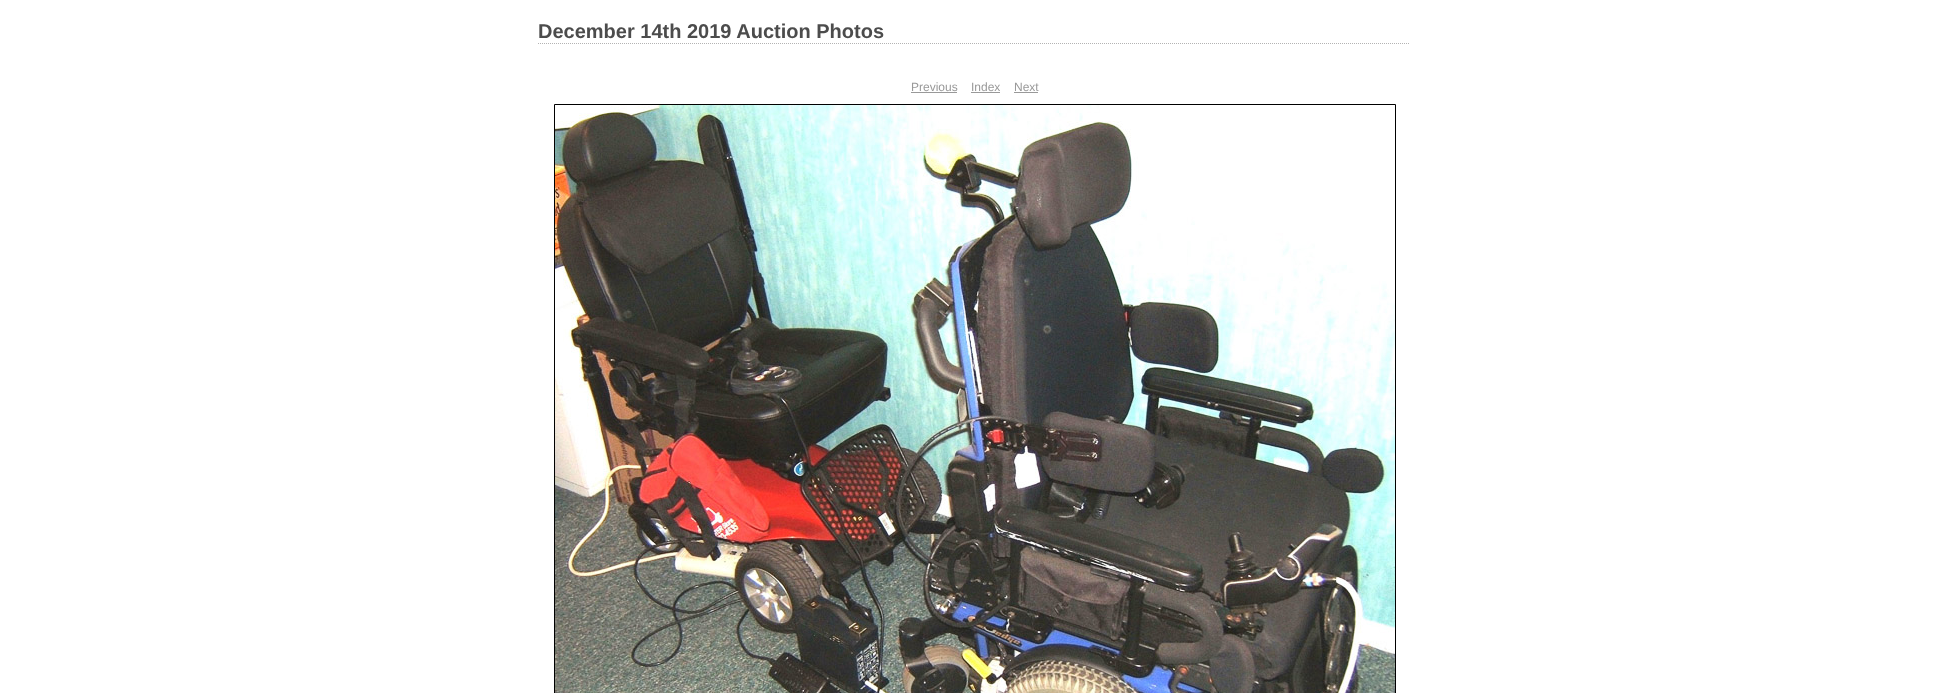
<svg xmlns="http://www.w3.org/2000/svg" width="1947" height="693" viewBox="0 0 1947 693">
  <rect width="100%" height="100%" fill="#fff"/>
  <path d="M538 43.5H1410" fill="none" stroke="#b3b3b3" stroke-dasharray="1 1"/>
  <path d="M911 92h46v1H911z" fill="#999"/>
  <path d="M971 92h29v1H971z" fill="#999"/>
  <path d="M1014 92h24v1H1014z" fill="#999"/>
  <path d="M554.5 104.5h841v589H554.5z" fill="none" stroke="#000"/>
  <image x="555" y="105" width="840" height="588" href="img/1.png"/>
  <text x="538" y="38" font-family="Liberation Sans" font-size="20" font-weight="bold" fill="#4c4c4c">December 14th 2019 Auction Photos</text>
  <g font-family="Liberation Sans" font-size="12" fill="#999">
    <text x="911" y="91">Previous</text>
    <text x="971" y="91">Index</text>
    <text x="1014" y="91">Next</text>
  </g>
</svg>
